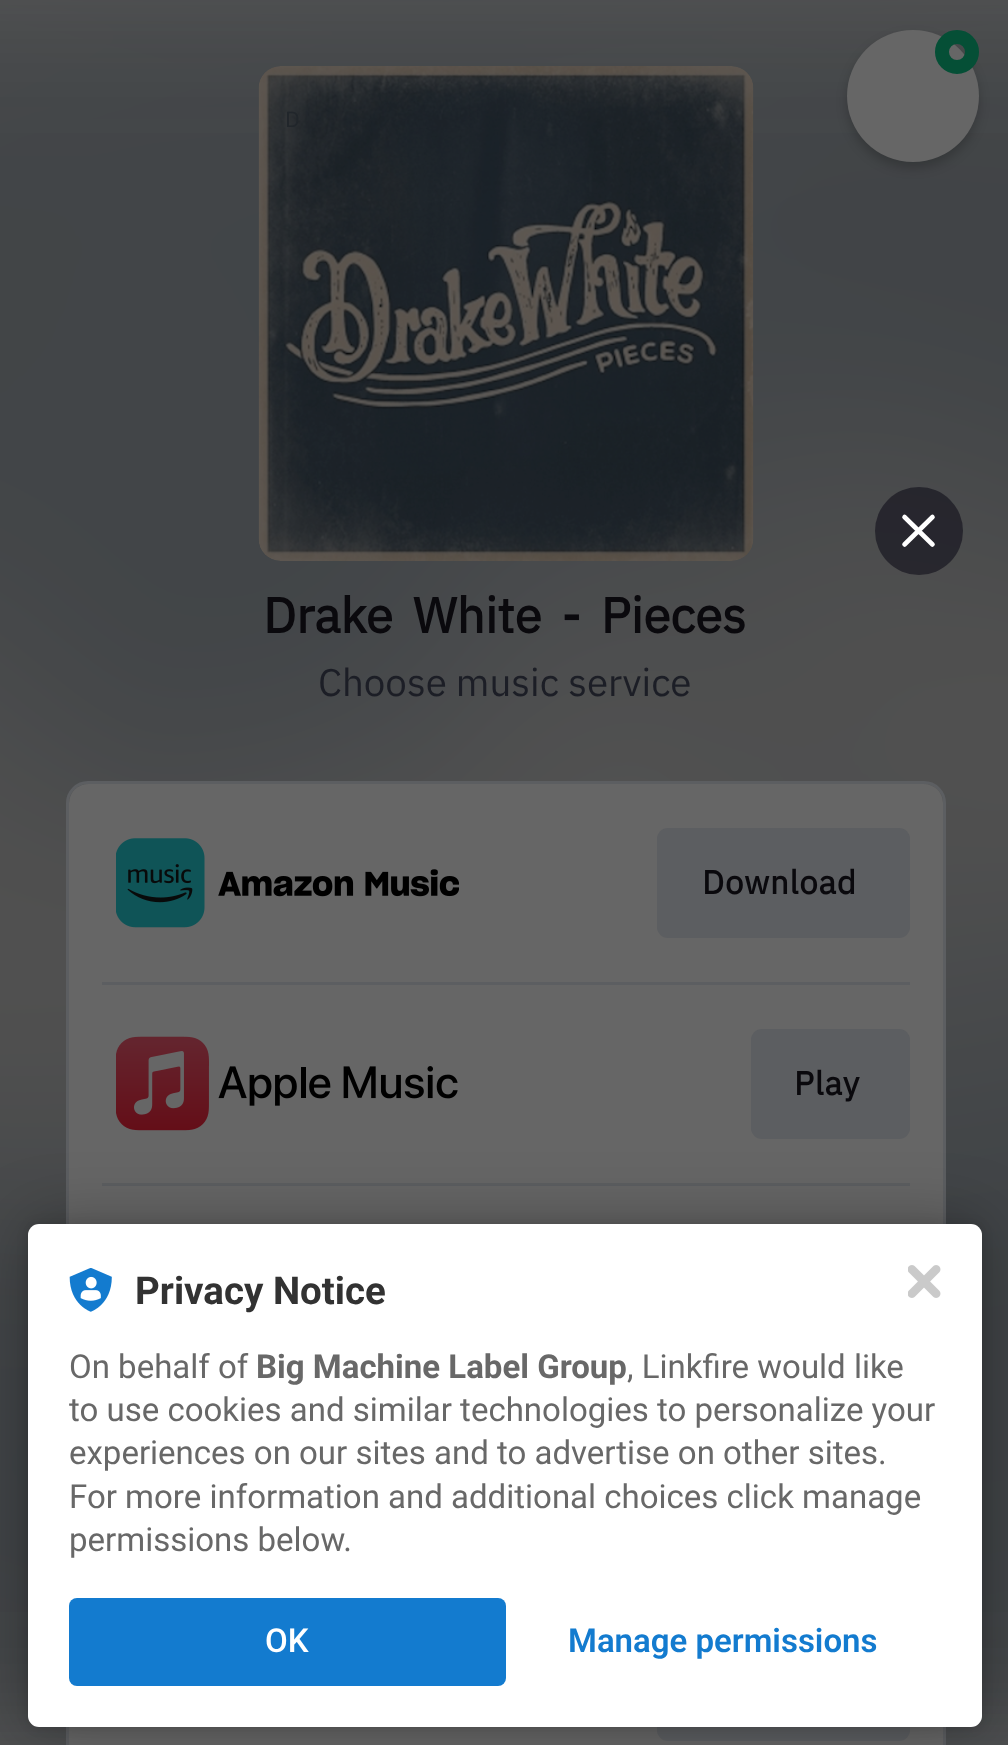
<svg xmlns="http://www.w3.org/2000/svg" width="1008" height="1745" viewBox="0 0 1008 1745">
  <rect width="100%" height="100%" fill="#666"/>
  <image x="0" y="0" width="1008" height="1745" href="img/1.png"/>
  <image x="258" y="66" width="496" height="495" href="img/2.png"/>
  <rect x="67.5" y="782.5" width="877" height="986" rx="20.5" fill="none" stroke="#5c5e61" stroke-width="3"/>
  <rect x="69" y="784" width="874" height="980" rx="19" fill="#666"/>
  <image x="116" y="838" width="343" height="90" href="img/3.png"/>
  <rect x="657" y="828" width="253" height="110" rx="11" fill="#5c5e61"/>
  <path d="M102 982h808v3H102z" fill="#5c5e61"/>
  <image x="116" y="1036" width="342" height="95" href="img/4.png"/>
  <rect x="751" y="1029" width="159" height="110" rx="11" fill="#5c5e61"/>
  <path d="M102 1183h808v3H102z" fill="#5c5e61"/>
  <rect x="657" y="1631" width="253" height="110" rx="11" fill="#5c5e61"/>
  <rect x="847" y="36" width="132" height="132" rx="66" fill="#00000033" filter="blur(5.5px)"/>
  <circle cx="913" cy="96" r="66" fill="#666"/>
  <circle cx="957" cy="52" r="15" fill="none" stroke="#054f36" stroke-width="14"/>
  <circle cx="919" cy="531" r="44" fill="#181721b3"/>
  <path d="M904.5 517L932.5 544.5M904.5 544.5L932.5 517" fill="none" stroke="#fff" stroke-width="4.6" stroke-linecap="round" stroke-linejoin="round"/>
  <rect x="28" y="1224" width="954" height="503" rx="11" fill="#0000001f" filter="blur(5.5px)"/>
  <rect x="28" y="1224" width="954" height="503" rx="11" fill="#0000004d" filter="blur(33px)"/>
  <rect x="28" y="1224" width="954" height="503" rx="11" fill="#fff"/>
  <image x="908" y="1265" width="33" height="33" href="img/5.png"/>
  <image x="69" y="1268" width="43" height="44" href="img/6.png"/>
  <rect x="69" y="1598" width="437" height="88" rx="8" fill="#137bcf"/>
  <text x="285" y="127" font-family="IBM Plex Sans" font-size="22" fill="#21262b">D</text>
  <text x="263" y="633" word-spacing="8" font-family="IBM Plex Sans" font-size="49.5" font-weight="bold" fill="#0a090d">Drake White - Pieces</text>
  <text x="318" y="696" font-family="IBM Plex Sans" font-size="38.5" fill="#1c1e26">Choose music service</text>
  <g font-family="IBM Plex Sans" font-size="33" font-weight="bold" letter-spacing="0.75" fill="#0a090d">
    <text x="702" y="894">Download</text>
    <text x="794" y="1095">Play</text>
  </g>
  <text x="135" y="1304" font-family="Roboto" font-size="38.5" font-weight="bold" fill="#323232">Privacy Notice</text>
  <text x="69" y="1378" font-family="Roboto" font-size="33" fill="#686868">On behalf of</text>
  <text x="256" y="1378" font-family="Roboto" font-size="33" font-weight="bold" fill="#686868">Big Machine Label Group</text>
  <g font-family="Roboto" font-size="33" fill="#686868">
    <text x="627" y="1378">, Linkfire would like</text>
    <text x="69" y="1421">to use cookies and similar technologies to personalize your</text>
    <text x="69" y="1464">experiences on our sites and to advertise on other sites.</text>
    <text x="69" y="1508">For more information and additional choices click manage</text>
    <text x="69" y="1551">permissions below.</text>
  </g>
  <text x="265" y="1652" font-family="Roboto" font-size="33" font-weight="500" fill="#fff">OK</text>
  <text x="568" y="1652" font-family="Roboto" font-size="33" font-weight="600" fill="#137bcf">Manage permissions</text>
</svg>
